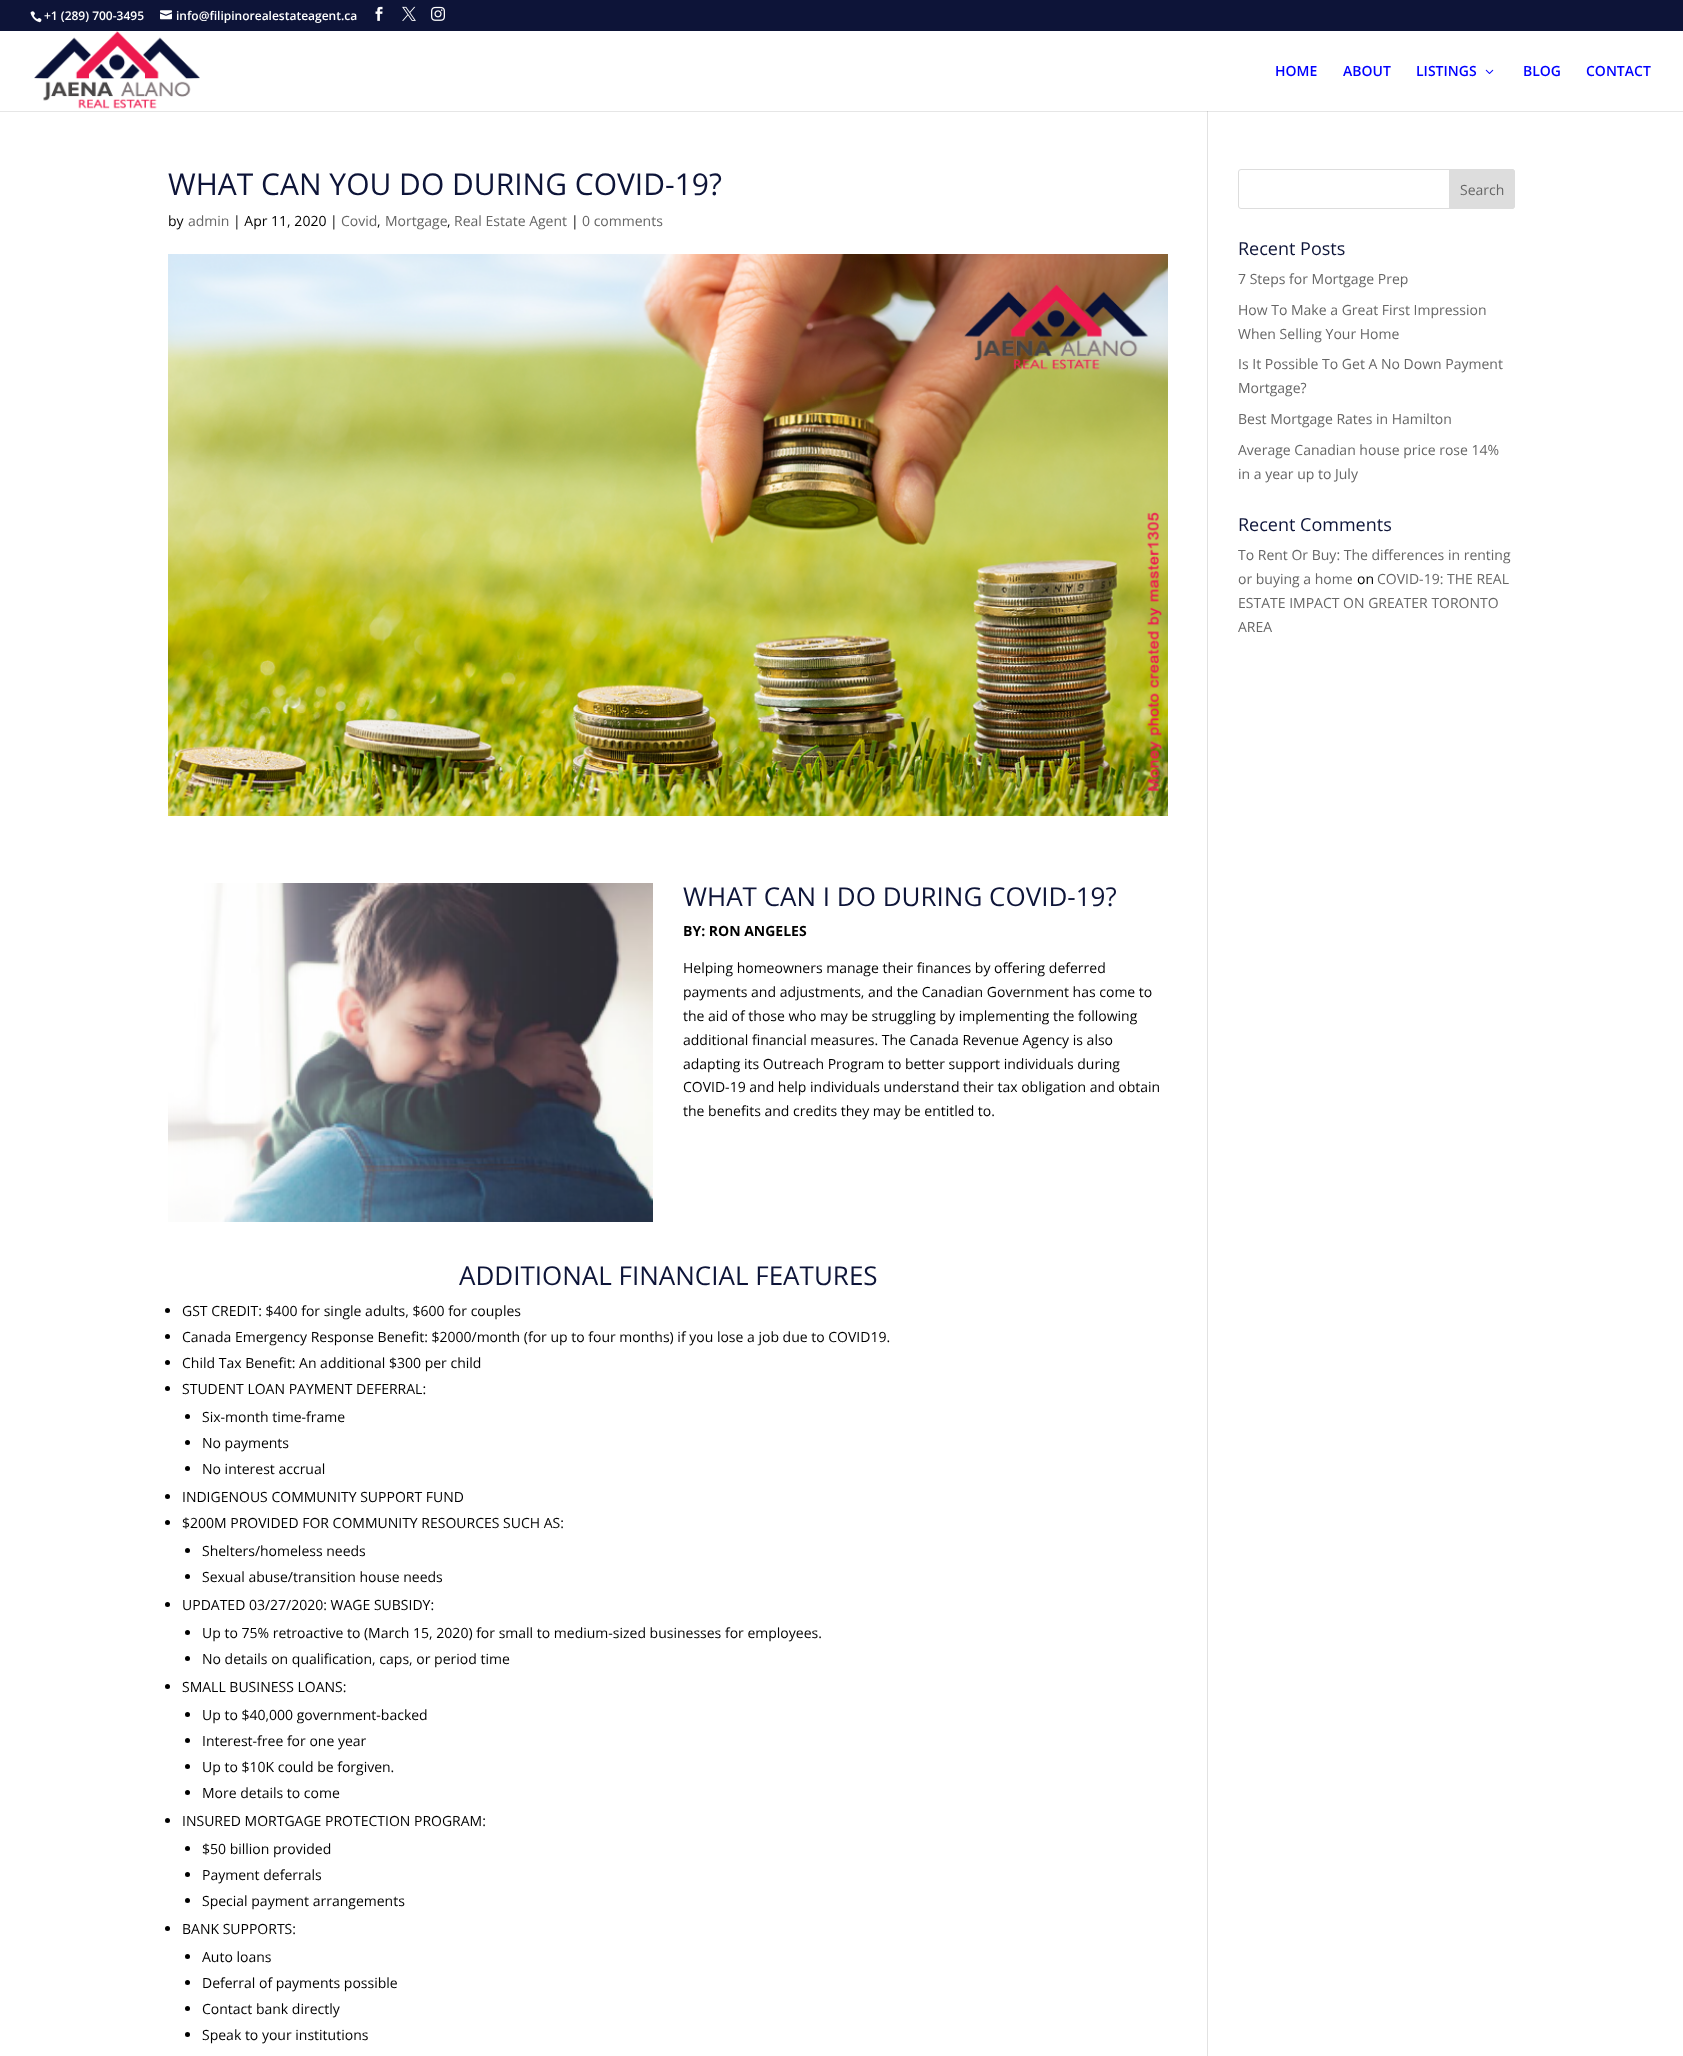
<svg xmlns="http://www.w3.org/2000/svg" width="1683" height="2056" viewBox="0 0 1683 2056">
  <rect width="100%" height="100%" fill="#fff"/>
  <path d="M0 111h1683v1H0z" fill="#e6e6e6"/>
  <path d="M0 0h1683v31H0z" fill="#0d1438"/>
  <image x="30" y="11" width="12" height="12" href="img/1.png"/>
  <image x="160" y="10" width="12" height="10" href="img/2.png"/>
  <image x="375" y="6" width="8" height="15" href="img/3.png"/>
  <image x="402" y="6" width="14" height="15" href="img/4.png"/>
  <image x="431" y="6" width="14" height="15" href="img/5.png"/>
  <image x="34" y="31" width="166" height="78" href="img/6.png"/>
  <image x="1485" y="69" width="9" height="5" href="img/7.png"/>
  <path d="M1207 111h1v1945H1207z" fill="#e2e2e2"/>
  <path d="M1207 111h1v1H1207z" fill="#cbcbcb"/>
  <image x="168" y="254" width="1000" height="562" href="img/8.png"/>
  <image x="168" y="883" width="485" height="339" href="img/9.png"/>
  <circle cx="167.5" cy="1310.5" r="2.5" fill="#000"/>
  <circle cx="167.5" cy="1336.5" r="2.5" fill="#000"/>
  <circle cx="167.5" cy="1362.5" r="2.5" fill="#000"/>
  <circle cx="167.5" cy="1388.5" r="2.5" fill="#000"/>
  <circle cx="187.5" cy="1416.5" r="2.5" fill="#000"/>
  <circle cx="187.5" cy="1442.5" r="2.5" fill="#000"/>
  <circle cx="187.5" cy="1468.5" r="2.5" fill="#000"/>
  <circle cx="167.5" cy="1496.5" r="2.5" fill="#000"/>
  <circle cx="167.5" cy="1522.5" r="2.5" fill="#000"/>
  <circle cx="187.5" cy="1550.5" r="2.5" fill="#000"/>
  <circle cx="187.5" cy="1576.5" r="2.5" fill="#000"/>
  <circle cx="167.5" cy="1604.5" r="2.5" fill="#000"/>
  <circle cx="187.5" cy="1632.5" r="2.5" fill="#000"/>
  <circle cx="187.5" cy="1658.5" r="2.5" fill="#000"/>
  <circle cx="167.5" cy="1686.5" r="2.5" fill="#000"/>
  <circle cx="187.5" cy="1714.5" r="2.5" fill="#000"/>
  <circle cx="187.5" cy="1740.5" r="2.5" fill="#000"/>
  <circle cx="187.5" cy="1766.5" r="2.5" fill="#000"/>
  <circle cx="187.5" cy="1792.5" r="2.5" fill="#000"/>
  <circle cx="167.5" cy="1820.5" r="2.5" fill="#000"/>
  <circle cx="187.5" cy="1848.5" r="2.5" fill="#000"/>
  <circle cx="187.5" cy="1874.5" r="2.5" fill="#000"/>
  <circle cx="187.5" cy="1900.5" r="2.5" fill="#000"/>
  <circle cx="167.5" cy="1928.5" r="2.5" fill="#000"/>
  <circle cx="187.5" cy="1956.5" r="2.5" fill="#000"/>
  <circle cx="187.5" cy="1982.5" r="2.5" fill="#000"/>
  <circle cx="187.5" cy="2008.5" r="2.5" fill="#000"/>
  <circle cx="187.5" cy="2034.5" r="2.5" fill="#000"/>
  <rect x="1238.5" y="169.5" width="276" height="39" rx="2.5" fill="none" stroke="#ddd"/>
  <path d="M1449.5 169.5H1512C1513.5 169.5 1514.5 170.5 1514.5 172V206C1514.5 207.5 1513.5 208.5 1512 208.5H1449.5Z" fill="#ddd" stroke="#ddd"/>
  <g font-family="Open Sans" font-size="12" font-weight="600" fill="#fff">
    <text x="44" y="20">+1 (289) 700-3495</text>
    <text x="176" y="20">info@filipinorealestateagent.ca</text>
  </g>
  <g font-family="Open Sans" font-size="14" font-weight="600" fill="#00f">
    <text x="1275" y="76">HOME</text>
    <text x="1343" y="76">ABOUT</text>
    <text x="1416" y="76">LISTINGS</text>
    <text x="1523" y="76">BLOG</text>
    <text x="1586" y="76">CONTACT</text>
  </g>
  <text x="168" y="195" font-family="Open Sans" font-size="30" fill="#0d1438">WHAT CAN YOU DO DURING COVID-19?</text>
  <text x="168" y="226" font-family="Open Sans" font-size="14" fill="#000">by</text>
  <text x="188" y="226" font-family="Open Sans" font-size="14" fill="#666">admin</text>
  <text x="233" y="226" font-family="Open Sans" font-size="14" fill="#000">| Apr 11, 2020 |</text>
  <text x="341" y="226" font-family="Open Sans" font-size="14" fill="#666">Covid</text>
  <text x="377" y="226" font-family="Open Sans" font-size="14" fill="#000">,</text>
  <text x="385" y="226" font-family="Open Sans" font-size="14" fill="#666">Mortgage</text>
  <text x="447" y="226" font-family="Open Sans" font-size="14" fill="#000">,</text>
  <text x="454" y="226" font-family="Open Sans" font-size="14" fill="#666">Real Estate Agent</text>
  <text x="571" y="226" font-family="Open Sans" font-size="14" fill="#000">|</text>
  <text x="582" y="226" font-family="Open Sans" font-size="14" fill="#666">0 comments</text>
  <text x="683" y="906" font-family="Open Sans" font-size="26" fill="#0d1438">WHAT CAN I DO DURING COVID-19?</text>
  <text x="683" y="936" font-family="Open Sans" font-size="14" font-weight="bold" fill="#000">BY: RON ANGELES</text>
  <g font-family="Open Sans" font-size="14" fill="#000">
    <text x="683" y="973">Helping homeowners manage their finances by offering deferred</text>
    <text x="683" y="997">payments and adjustments, and the Canadian Government has come to</text>
    <text x="683" y="1021">the aid of those who may be struggling by implementing the following</text>
    <text x="683" y="1045">additional financial measures. The Canada Revenue Agency is also</text>
    <text x="683" y="1069">adapting its Outreach Program to better support individuals during</text>
    <text x="683" y="1092">COVID-19 and help individuals understand their tax obligation and obtain</text>
    <text x="683" y="1116">the benefits and credits they may be entitled to.</text>
  </g>
  <text x="459" y="1285" font-family="Open Sans" font-size="26" fill="#0d1438">ADDITIONAL FINANCIAL FEATURES</text>
  <g font-family="Open Sans" font-size="14" fill="#000">
    <text x="182" y="1316">GST CREDIT: $400 for single adults, $600 for couples</text>
    <text x="182" y="1342">Canada Emergency Response Benefit: $2000/month (for up to four months) if you lose a job due to COVID19.</text>
    <text x="182" y="1368">Child Tax Benefit: An additional $300 per child</text>
    <text x="182" y="1394">STUDENT LOAN PAYMENT DEFERRAL:</text>
    <text x="202" y="1422">Six-month time-frame</text>
    <text x="202" y="1448">No payments</text>
    <text x="202" y="1474">No interest accrual</text>
    <text x="182" y="1502">INDIGENOUS COMMUNITY SUPPORT FUND</text>
    <text x="182" y="1528">$200M PROVIDED FOR COMMUNITY RESOURCES SUCH AS:</text>
    <text x="202" y="1556">Shelters/homeless needs</text>
    <text x="202" y="1582">Sexual abuse/transition house needs</text>
    <text x="182" y="1610">UPDATED 03/27/2020: WAGE SUBSIDY:</text>
    <text x="202" y="1638">Up to 75% retroactive to (March 15, 2020) for small to medium-sized businesses for employees.</text>
    <text x="202" y="1664">No details on qualification, caps, or period time</text>
    <text x="182" y="1692">SMALL BUSINESS LOANS:</text>
    <text x="202" y="1720">Up to $40,000 government-backed</text>
    <text x="202" y="1746">Interest-free for one year</text>
    <text x="202" y="1772">Up to $10K could be forgiven.</text>
    <text x="202" y="1798">More details to come</text>
    <text x="182" y="1826">INSURED MORTGAGE PROTECTION PROGRAM:</text>
    <text x="202" y="1854">$50 billion provided</text>
    <text x="202" y="1880">Payment deferrals</text>
    <text x="202" y="1906">Special payment arrangements</text>
    <text x="182" y="1934">BANK SUPPORTS:</text>
    <text x="202" y="1962">Auto loans</text>
    <text x="202" y="1988">Deferral of payments possible</text>
    <text x="202" y="2014">Contact bank directly</text>
    <text x="202" y="2040">Speak to your institutions</text>
  </g>
  <text x="1460" y="195" font-family="Open Sans" font-size="14" fill="#666">Search</text>
  <text x="1238" y="255" font-family="Open Sans" font-size="18" fill="#0d1438">Recent Posts</text>
  <g font-family="Open Sans" font-size="14" fill="#666">
    <text x="1238" y="284">7 Steps for Mortgage Prep</text>
    <text x="1238" y="315">How To Make a Great First Impression</text>
    <text x="1238" y="339">When Selling Your Home</text>
    <text x="1238" y="369">Is It Possible To Get A No Down Payment</text>
    <text x="1238" y="393">Mortgage?</text>
    <text x="1238" y="424">Best Mortgage Rates in Hamilton</text>
    <text x="1238" y="455">Average Canadian house price rose 14%</text>
    <text x="1238" y="479">in a year up to July</text>
  </g>
  <text x="1238" y="531" font-family="Open Sans" font-size="18" fill="#0d1438">Recent Comments</text>
  <g font-family="Open Sans" font-size="14" fill="#666">
    <text x="1238" y="560">To Rent Or Buy: The differences in renting</text>
    <text x="1238" y="584">or buying a home</text>
  </g>
  <text x="1357" y="584" font-family="Open Sans" font-size="14" fill="#000">on</text>
  <g font-family="Open Sans" font-size="14" fill="#666">
    <text x="1377" y="584">COVID-19: THE REAL</text>
    <text x="1238" y="608">ESTATE IMPACT ON GREATER TORONTO</text>
    <text x="1238" y="632">AREA</text>
  </g>
</svg>
